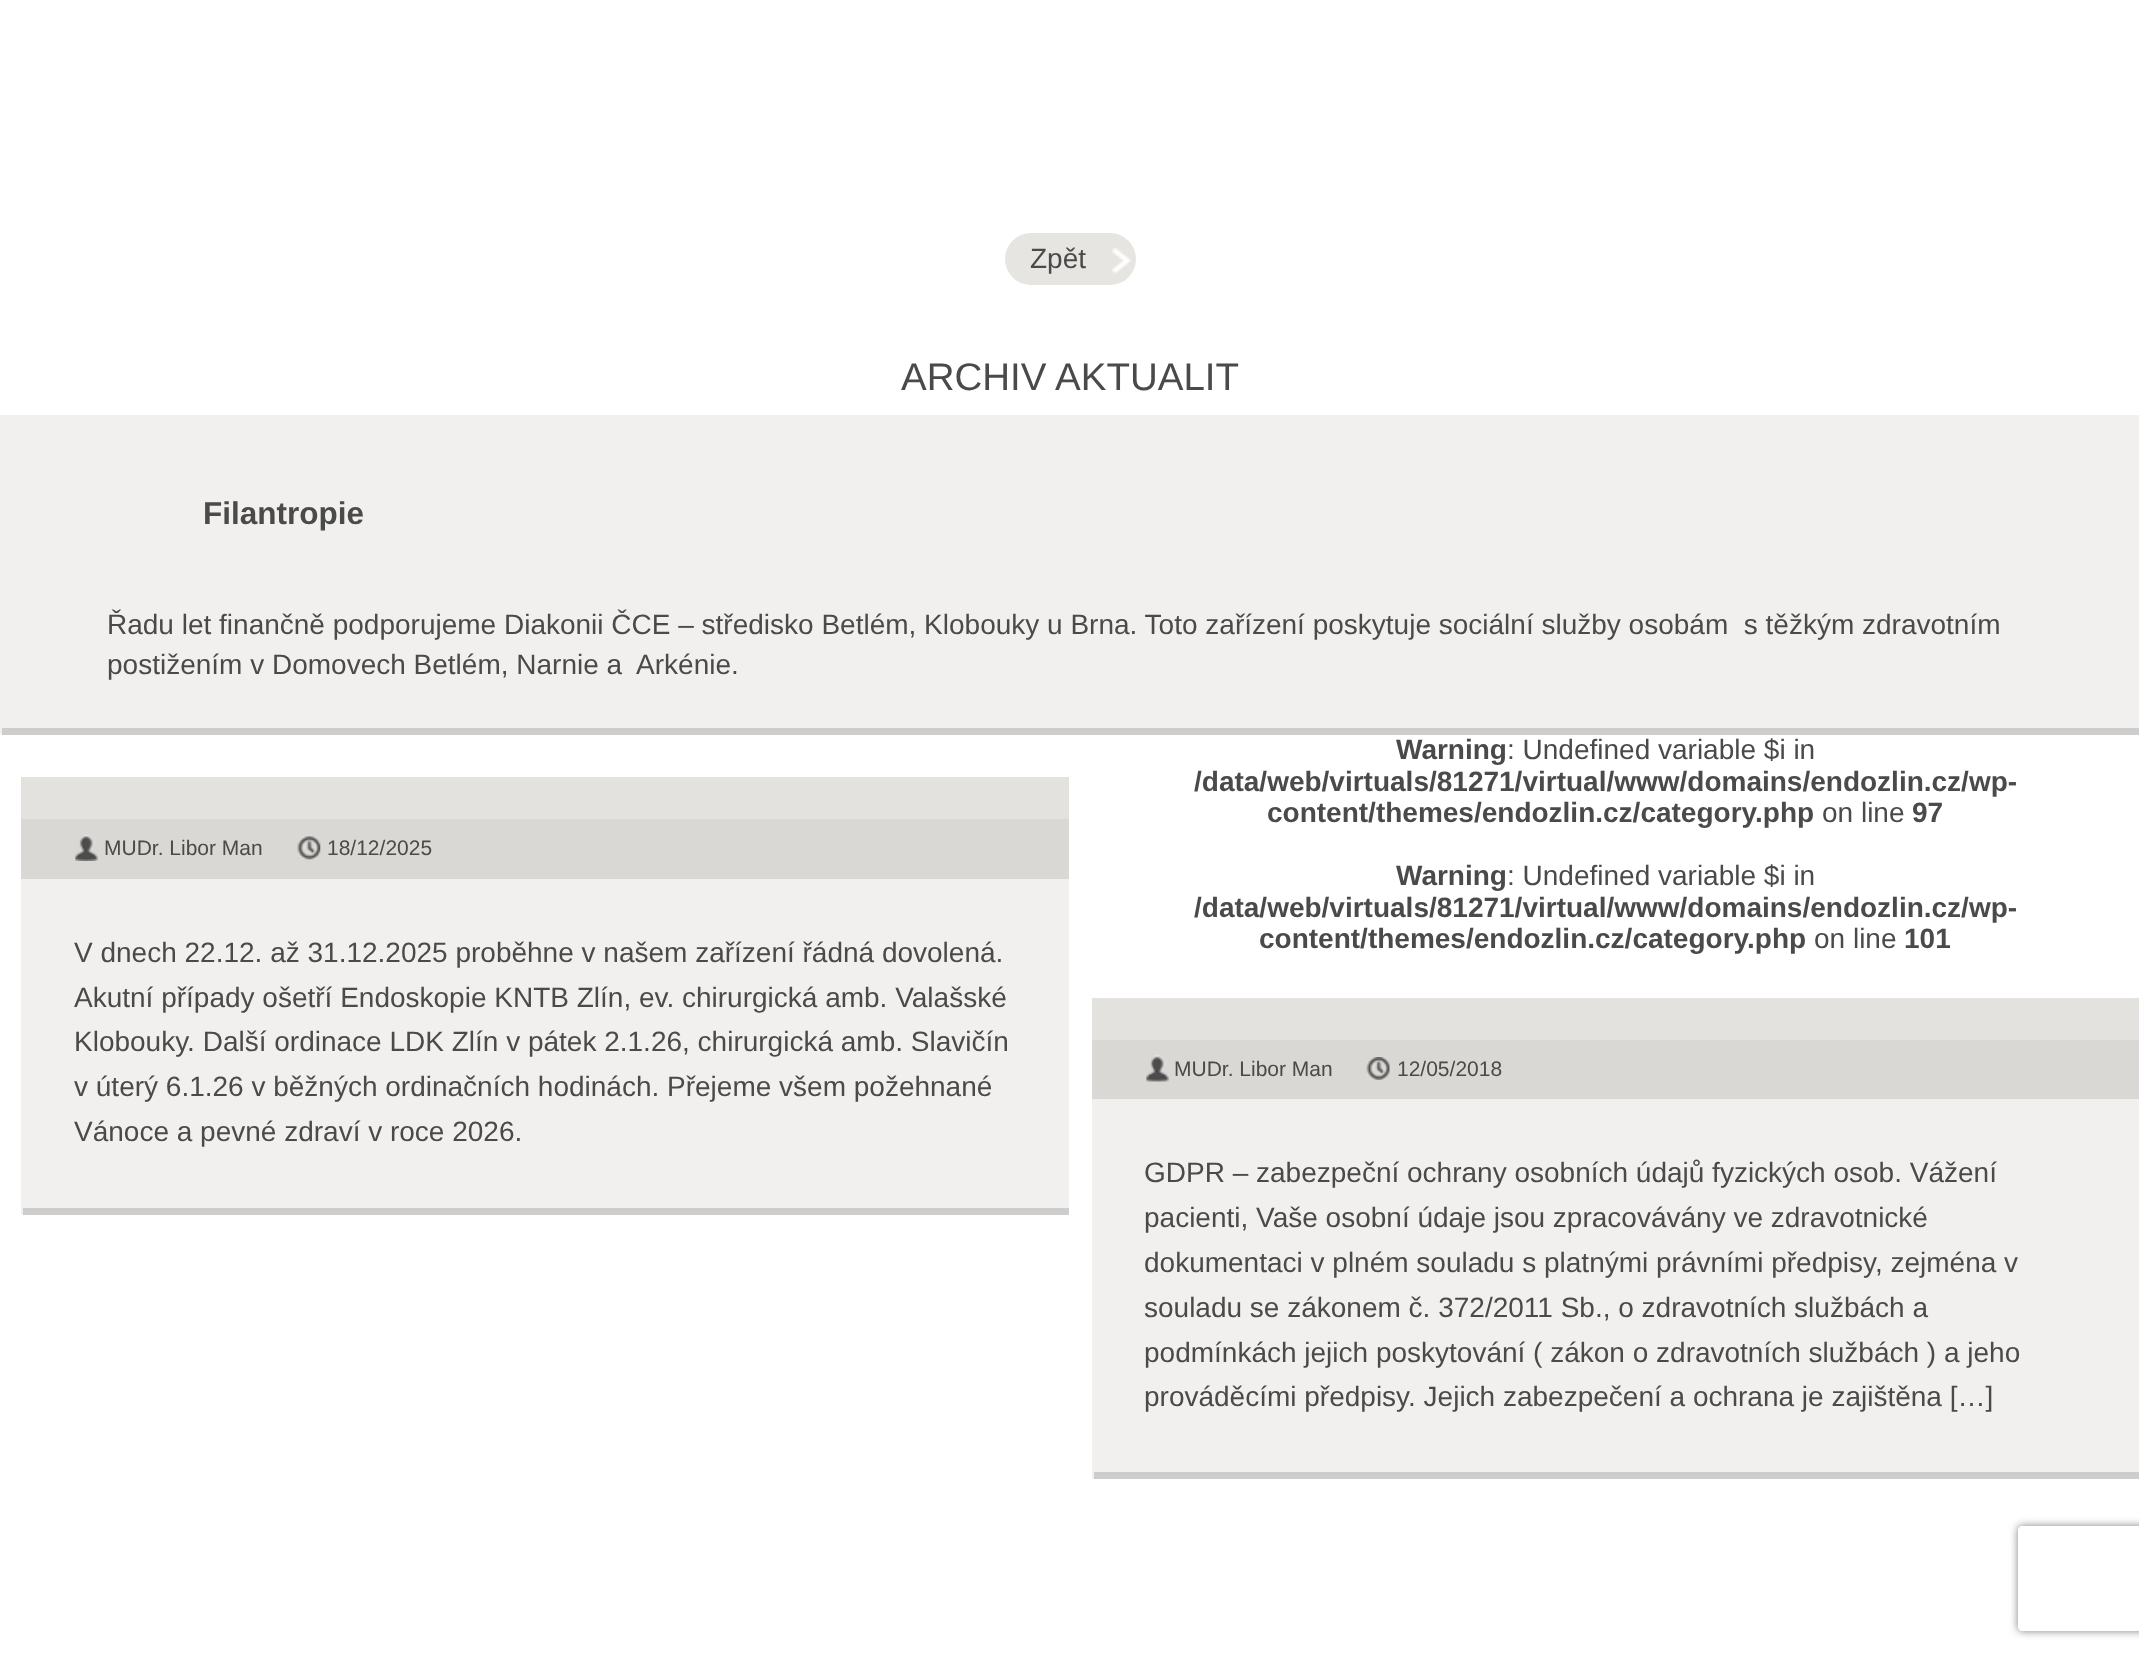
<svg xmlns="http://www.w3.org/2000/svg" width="2139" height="1655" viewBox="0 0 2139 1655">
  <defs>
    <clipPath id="clip1"><path d="M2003 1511H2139V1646H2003ZM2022 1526H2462C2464 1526 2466 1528 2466 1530V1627C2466 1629 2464 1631 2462 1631H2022C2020 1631 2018 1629 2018 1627V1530C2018 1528 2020 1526 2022 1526Z" clip-rule="evenodd"/></clipPath>
  </defs>
  <rect width="100%" height="100%" fill="#fff"/>
  <rect x="1005" y="233" width="131" height="52" rx="26" fill="#e7e5e2"/>
  <image x="1111" y="248" width="20" height="26" href="img/1.png"/>
  <path d="M0 415H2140V733C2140 734 2139 735 2138 735H2C1 735 0 734 0 733Z" fill="#f1f0ee"/>
  <path d="M2 728h2137v7H2z" fill="#cdcdcd"/>
  <path d="M21 777H1069V1213C1069 1214 1068 1215 1067 1215H23C22 1215 21 1214 21 1213Z" fill="#f1f0ee"/>
  <path d="M23 1208h1046v7H23z" fill="#cdcdcd"/>
  <path d="M21 777h1048v42H21z" fill="#e4e2de"/>
  <path d="M21 819h1048v60H21z" fill="#dad8d4"/>
  <image x="75" y="835" width="23" height="26" href="img/2.png"/>
  <image x="297" y="836" width="24" height="24" href="img/3.png"/>
  <path d="M1092 998H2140V1477C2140 1478 2139 1479 2138 1479H1094C1093 1479 1092 1478 1092 1477Z" fill="#f1f0ee"/>
  <path d="M1094 1472h1045v7H1094z" fill="#cdcdcd"/>
  <path d="M1092 998h1047v42H1092z" fill="#e4e2de"/>
  <path d="M1092 1040h1047v59H1092z" fill="#dad8d4"/>
  <image x="1146" y="1055" width="23" height="27" href="img/4.png"/>
  <image x="1366" y="1057" width="24" height="23" href="img/5.png"/>
  <g clip-path="url(#clip1)">
    <rect x="2018" y="1526" width="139" height="105" rx="4" fill="#808080" filter="blur(4.5px)"/>
  </g>
  <text x="1030" y="268" font-family="Liberation Sans" font-size="28" fill="#4a4a4a">Zpět</text>
  <text x="901" y="390" font-family="Liberation Sans" font-size="38.5" fill="#4a4a4a">ARCHIV AKTUALIT</text>
  <text x="203" y="524" font-family="Liberation Sans" font-size="31.5" font-weight="bold" fill="#4a4a4a">Filantropie</text>
  <g font-family="Liberation Sans" font-size="28" fill="#4a4a4a">
    <text x="107" y="634" xml:space="preserve">Řadu let finančně podporujeme Diakonii ČCE – středisko Betlém, Klobouky u Brna. Toto zařízení poskytuje sociální služby osobám  s těžkým zdravotním</text>
    <text x="107" y="674" xml:space="preserve">postižením v Domovech Betlém, Narnie a  Arkénie.</text>
  </g>
  <text x="1396" y="759" font-family="Liberation Sans" font-size="28" font-weight="bold" fill="#4a4a4a">Warning</text>
  <text x="1507" y="759" font-family="Liberation Sans" font-size="28" fill="#4a4a4a">: Undefined variable $i in</text>
  <g font-family="Liberation Sans" font-size="28" font-weight="bold" fill="#4a4a4a">
    <text x="1194" y="791">/data/web/virtuals/81271/virtual/www/domains/endozlin.cz/wp-</text>
    <text x="1267" y="822">content/themes/endozlin.cz/category.php</text>
  </g>
  <text x="1822" y="822" font-family="Liberation Sans" font-size="28" fill="#4a4a4a">on line</text>
  <text x="1912" y="822" font-family="Liberation Sans" font-size="28" font-weight="bold" fill="#4a4a4a">97</text>
  <g font-family="Liberation Sans" font-size="21" fill="#4a4a4a">
    <text x="104" y="855">MUDr. Libor Man</text>
    <text x="327" y="855">18/12/2025</text>
  </g>
  <g font-family="Liberation Sans" font-size="28" fill="#4a4a4a">
    <text x="74" y="962">V dnech 22.12. až 31.12.2025 proběhne v našem zařízení řádná dovolená.</text>
    <text x="74" y="1007">Akutní případy ošetří Endoskopie KNTB Zlín, ev. chirurgická amb. Valašské</text>
    <text x="74" y="1051">Klobouky. Další ordinace LDK Zlín v pátek 2.1.26, chirurgická amb. Slavičín</text>
    <text x="74" y="1096">v úterý 6.1.26 v běžných ordinačních hodinách. Přejeme všem požehnané</text>
    <text x="74" y="1141">Vánoce a pevné zdraví v roce 2026.</text>
  </g>
  <text x="1396" y="885" font-family="Liberation Sans" font-size="28" font-weight="bold" fill="#4a4a4a">Warning</text>
  <text x="1507" y="885" font-family="Liberation Sans" font-size="28" fill="#4a4a4a">: Undefined variable $i in</text>
  <g font-family="Liberation Sans" font-size="28" font-weight="bold" fill="#4a4a4a">
    <text x="1194" y="917">/data/web/virtuals/81271/virtual/www/domains/endozlin.cz/wp-</text>
    <text x="1259" y="948">content/themes/endozlin.cz/category.php</text>
  </g>
  <text x="1814" y="948" font-family="Liberation Sans" font-size="28" fill="#4a4a4a">on line</text>
  <text x="1904" y="948" font-family="Liberation Sans" font-size="28" font-weight="bold" fill="#4a4a4a">101</text>
  <g font-family="Liberation Sans" font-size="21" fill="#4a4a4a">
    <text x="1174" y="1076">MUDr. Libor Man</text>
    <text x="1397" y="1076">12/05/2018</text>
  </g>
  <g font-family="Liberation Sans" font-size="28" fill="#4a4a4a">
    <text x="1144" y="1182">GDPR – zabezpeční ochrany osobních údajů fyzických osob. Vážení</text>
    <text x="1144" y="1227">pacienti, Vaše osobní údaje jsou zpracovávány ve zdravotnické</text>
    <text x="1144" y="1272">dokumentaci v plném souladu s platnými právními předpisy, zejména v</text>
    <text x="1144" y="1317">souladu se zákonem č. 372/2011 Sb., o zdravotních službách a</text>
    <text x="1144" y="1362">podmínkách jejich poskytování ( zákon o zdravotních službách ) a jeho</text>
    <text x="1144" y="1406">prováděcími předpisy. Jejich zabezpečení a ochrana je zajištěna […]</text>
  </g>
</svg>
